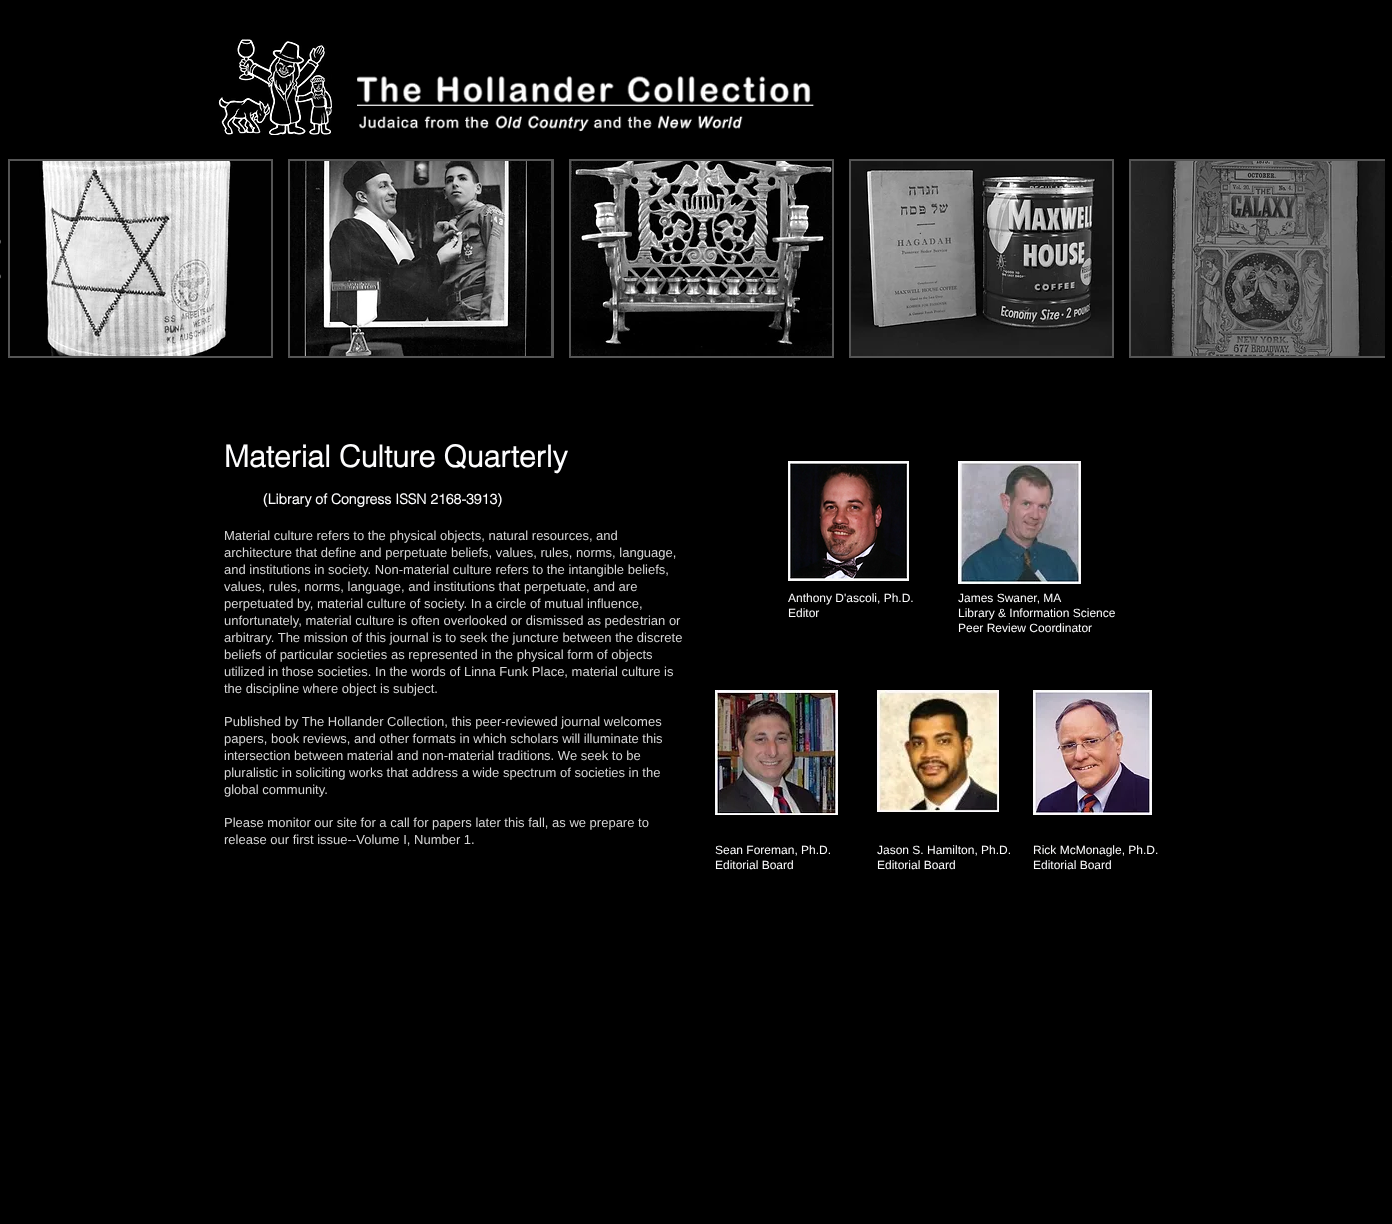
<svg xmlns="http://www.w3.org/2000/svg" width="1392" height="1224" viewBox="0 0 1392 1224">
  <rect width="100%" height="100%" fill="#000"/>
  <image x="355" y="76" width="460" height="56" href="img/2.png"/>
  <rect x="200" y="35" width="157" height="100" rx="10" fill="#000"/>
  <image x="218" y="39" width="114" height="96" href="img/1.png"/>
  <image x="0" y="239" width="1" height="40" href="img/3.png"/>
  <path d="M8 159h265v199H8z" fill="#555"/>
  <image x="10" y="161" width="261" height="195" href="img/4.png"/>
  <path d="M288 159h266v199H288z" fill="#555"/>
  <image x="290" y="161" width="261" height="195" href="img/5.png"/>
  <path d="M569 159h265v199H569z" fill="#555"/>
  <image x="571" y="161" width="261" height="195" href="img/6.png"/>
  <path d="M849 159h265v199H849z" fill="#555"/>
  <image x="851" y="161" width="261" height="195" href="img/7.png"/>
  <path d="M1129 159h256v199H1129z" fill="#555"/>
  <image x="1131" y="161" width="254" height="195" href="img/8.png"/>
  <image x="1391" y="241" width="1" height="37" href="img/9.png"/>
  <image x="788" y="461" width="121" height="120" href="img/10.png"/>
  <image x="958" y="461" width="123" height="123" href="img/11.png"/>
  <image x="715" y="690" width="123" height="125" href="img/12.png"/>
  <image x="877" y="690" width="122" height="122" href="img/13.png"/>
  <image x="1033" y="690" width="119" height="125" href="img/14.png"/>
  <text x="224" y="467" font-family="helvetica" font-size="30" font-weight="bold" fill="#fdfdfe">Material Culture Quarterly</text>
  <text x="263" y="504" font-family="helvetica" font-size="14" font-weight="bold" fill="#fdfdfe">(Library of Congress ISSN 2168-3913)</text>
  <g font-family="Liberation Sans" font-size="13" fill="#d5d5d5">
    <text x="224" y="540">Material culture refers to the physical objects, natural resources, and</text>
    <text x="224" y="557">architecture that define and perpetuate beliefs, values, rules, norms, language,</text>
    <text x="224" y="574">and institutions in society. Non-material culture refers to the intangible beliefs,</text>
    <text x="224" y="591">values, rules, norms, language, and institutions that perpetuate, and are</text>
    <text x="224" y="608">perpetuated by, material culture of society. In a circle of mutual influence,</text>
    <text x="224" y="625">unfortunately, material culture is often overlooked or dismissed as pedestrian or</text>
    <text x="224" y="642">arbitrary. The mission of this journal is to seek the juncture between the discrete</text>
    <text x="224" y="659">beliefs of particular societies as represented in the physical form of objects</text>
    <text x="224" y="676">utilized in those societies. In the words of Linna Funk Place, material culture is</text>
    <text x="224" y="693">the discipline where object is subject.</text>
    <text x="224" y="726">Published by The Hollander Collection, this peer-reviewed journal welcomes</text>
    <text x="224" y="743">papers, book reviews, and other formats in which scholars will illuminate this</text>
    <text x="224" y="760">intersection between material and non-material traditions. We seek to be</text>
    <text x="224" y="777">pluralistic in soliciting works that address a wide spectrum of societies in the</text>
    <text x="224" y="794">global community.</text>
    <text x="224" y="827">Please monitor our site for a call for papers later this fall, as we prepare to</text>
    <text x="224" y="844">release our first issue--Volume I, Number 1.</text>
  </g>
  <g font-family="Liberation Sans" font-size="12" fill="#fdfdfe">
    <text x="788" y="602">Anthony D'ascoli, Ph.D.</text>
    <text x="788" y="617">Editor</text>
    <text x="958" y="602">James Swaner, MA</text>
    <text x="958" y="617">Library &amp; Information Science</text>
    <text x="958" y="632">Peer Review Coordinator</text>
    <text x="715" y="854">Sean Foreman, Ph.D.</text>
    <text x="715" y="869">Editorial Board</text>
    <text x="877" y="854">Jason S. Hamilton, Ph.D.</text>
    <text x="877" y="869">Editorial Board</text>
    <text x="1033" y="854">Rick McMonagle, Ph.D.</text>
    <text x="1033" y="869">Editorial Board</text>
  </g>
</svg>
